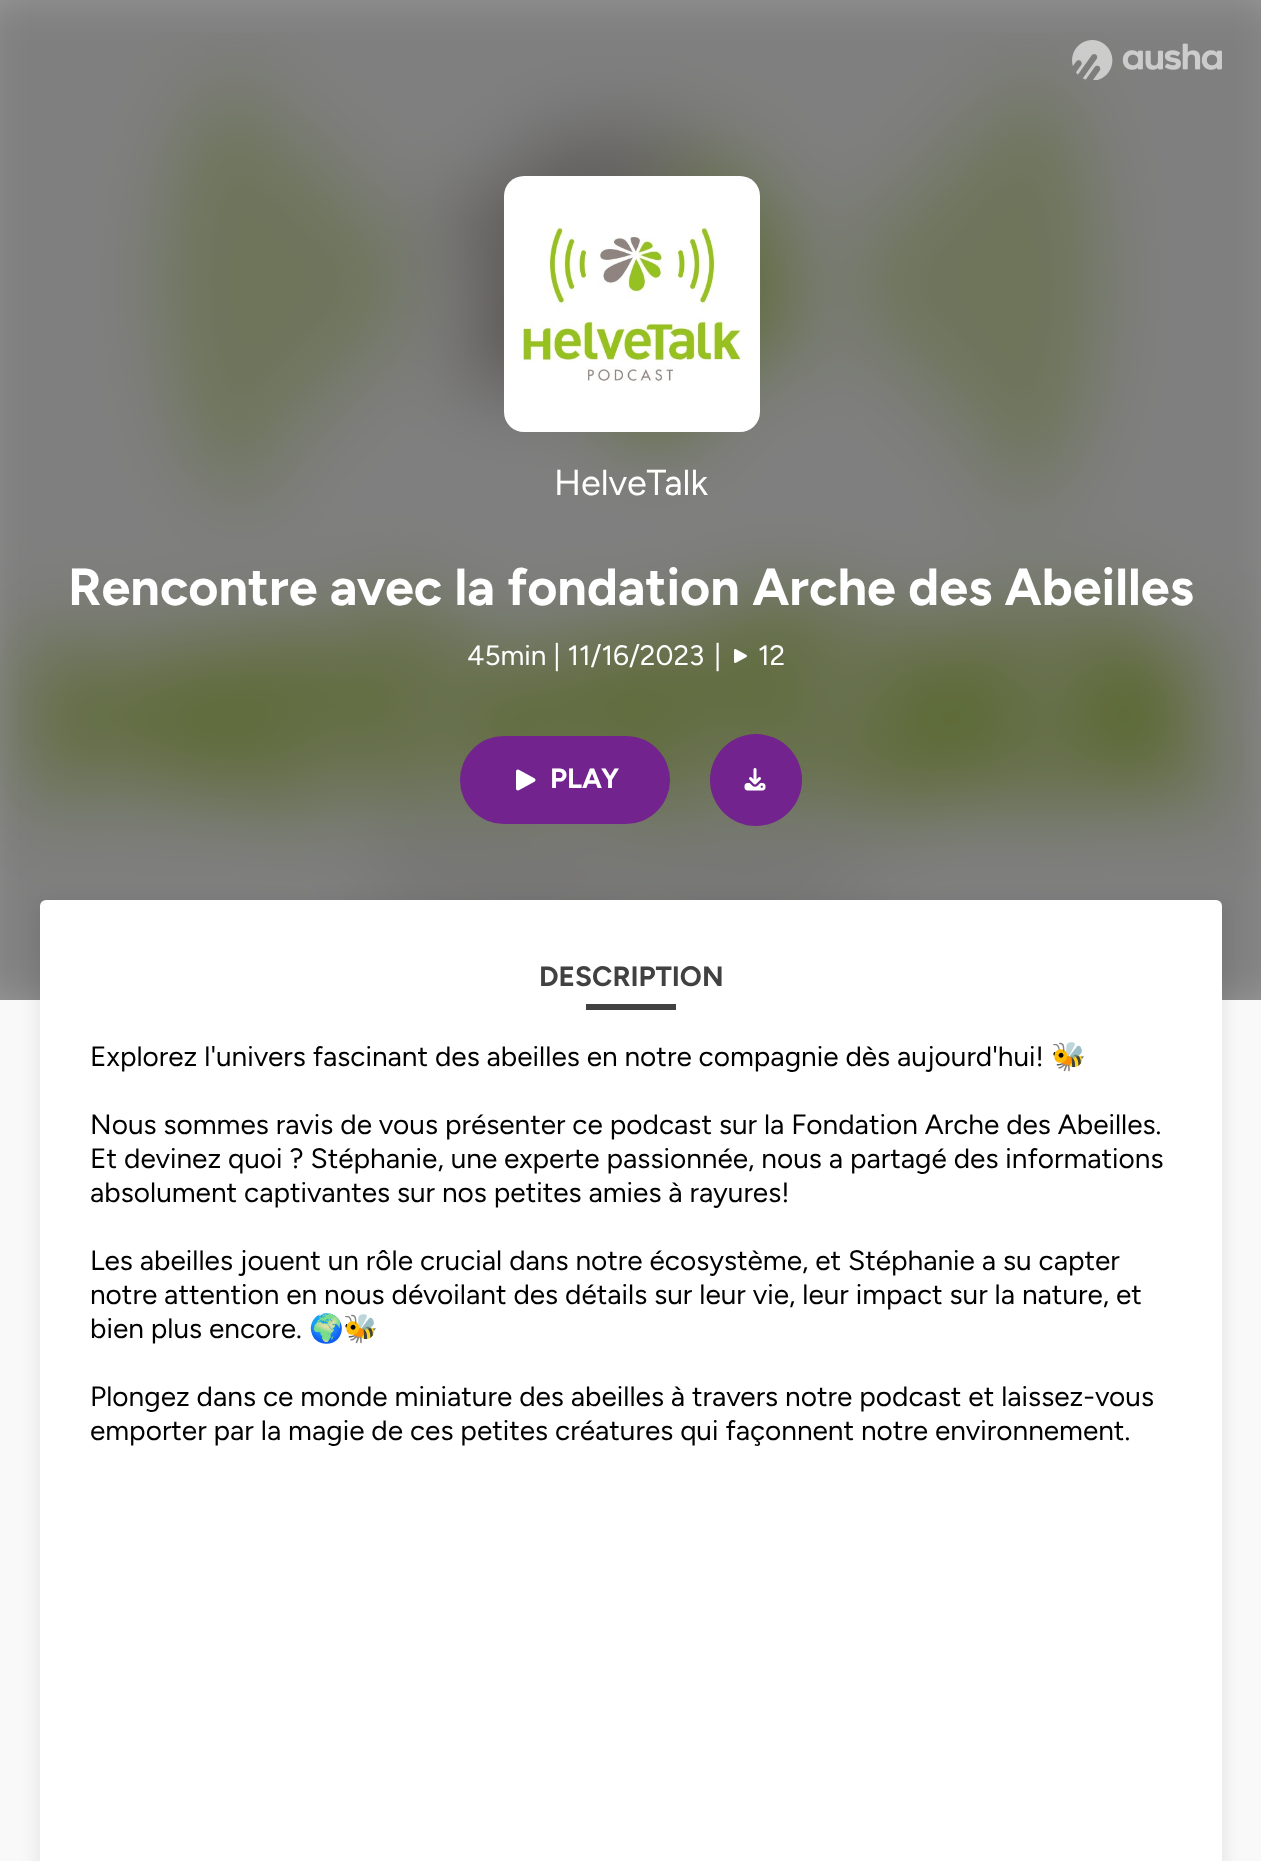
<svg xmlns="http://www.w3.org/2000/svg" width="1261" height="1861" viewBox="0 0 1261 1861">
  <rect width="100%" height="100%" fill="#fff"/>
  <image x="0" y="33" width="1261" height="932" href="img/1.png"/>
  <path d="M-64 -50h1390v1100H-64z" fill="#00000080" filter="blur(40px)"/>
  <image x="1072" y="40" width="150" height="40" href="img/2.png"/>
  <image x="504" y="176" width="256" height="256" href="img/3.png"/>
  <image x="734" y="649" width="13" height="14" href="img/4.png"/>
  <rect x="460" y="736" width="210" height="88" rx="44" fill="#72238e"/>
  <image x="516" y="769" width="20" height="22" href="img/5.png"/>
  <circle cx="756" cy="780" r="46" fill="#72238e"/>
  <image x="744" y="768" width="22" height="23" href="img/6.png"/>
  <path d="M0 1000h1261v861H0z" fill="#f9f9f9"/>
  <rect x="40" y="904" width="1182" height="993" rx="6" fill="#0000001a" filter="blur(10px)"/>
  <rect x="40" y="900" width="1182" height="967" rx="6" fill="#fff"/>
  <path d="M586 1004h90v6H586z" fill="#414141"/>
  <text x="554" y="495" font-family="Figtree" font-size="36" fill="#fff">HelveTalk</text>
  <text x="68" y="605" font-family="Figtree" font-size="52" font-weight="bold" fill="#fff">Rencontre avec la fondation Arche des Abeilles</text>
  <g font-family="Figtree" font-size="28" fill="#fff">
    <text x="467" y="665">45min | 11/16/2023</text>
    <text x="714" y="665">|</text>
    <text x="758" y="665">12</text>
  </g>
  <text x="550" y="788" font-family="Figtree" font-size="28" font-weight="bold" fill="#fff">PLAY</text>
  <text x="539" y="986" font-family="Figtree" font-size="28" font-weight="bold" fill="#414141">DESCRIPTION</text>
  <text x="90" y="1066" font-family="Figtree" font-size="28" fill="#000">Explorez l'univers fascinant des abeilles en notre compagnie dès aujourd'hui!</text>
  <text x="1051" y="1066" font-family="Noto Color Emoji" font-size="28" fill="#000">🐝</text>
  <g font-family="Figtree" font-size="28" fill="#000">
    <text x="90" y="1134">Nous sommes ravis de vous présenter ce podcast sur la Fondation Arche des Abeilles.</text>
    <text x="90" y="1168">Et devinez quoi ? Stéphanie, une experte passionnée, nous a partagé des informations</text>
    <text x="90" y="1202">absolument captivantes sur nos petites amies à rayures!</text>
    <text x="90" y="1270">Les abeilles jouent un rôle crucial dans notre écosystème, et Stéphanie a su capter</text>
    <text x="90" y="1304">notre attention en nous dévoilant des détails sur leur vie, leur impact sur la nature, et</text>
    <text x="90" y="1338">bien plus encore.</text>
  </g>
  <text x="309" y="1338" font-family="Noto Color Emoji" font-size="28" fill="#000">🌍🐝</text>
  <g font-family="Figtree" font-size="28" fill="#000">
    <text x="90" y="1406">Plongez dans ce monde miniature des abeilles à travers notre podcast et laissez-vous</text>
    <text x="90" y="1440">emporter par la magie de ces petites créatures qui façonnent notre environnement.</text>
  </g>
</svg>
